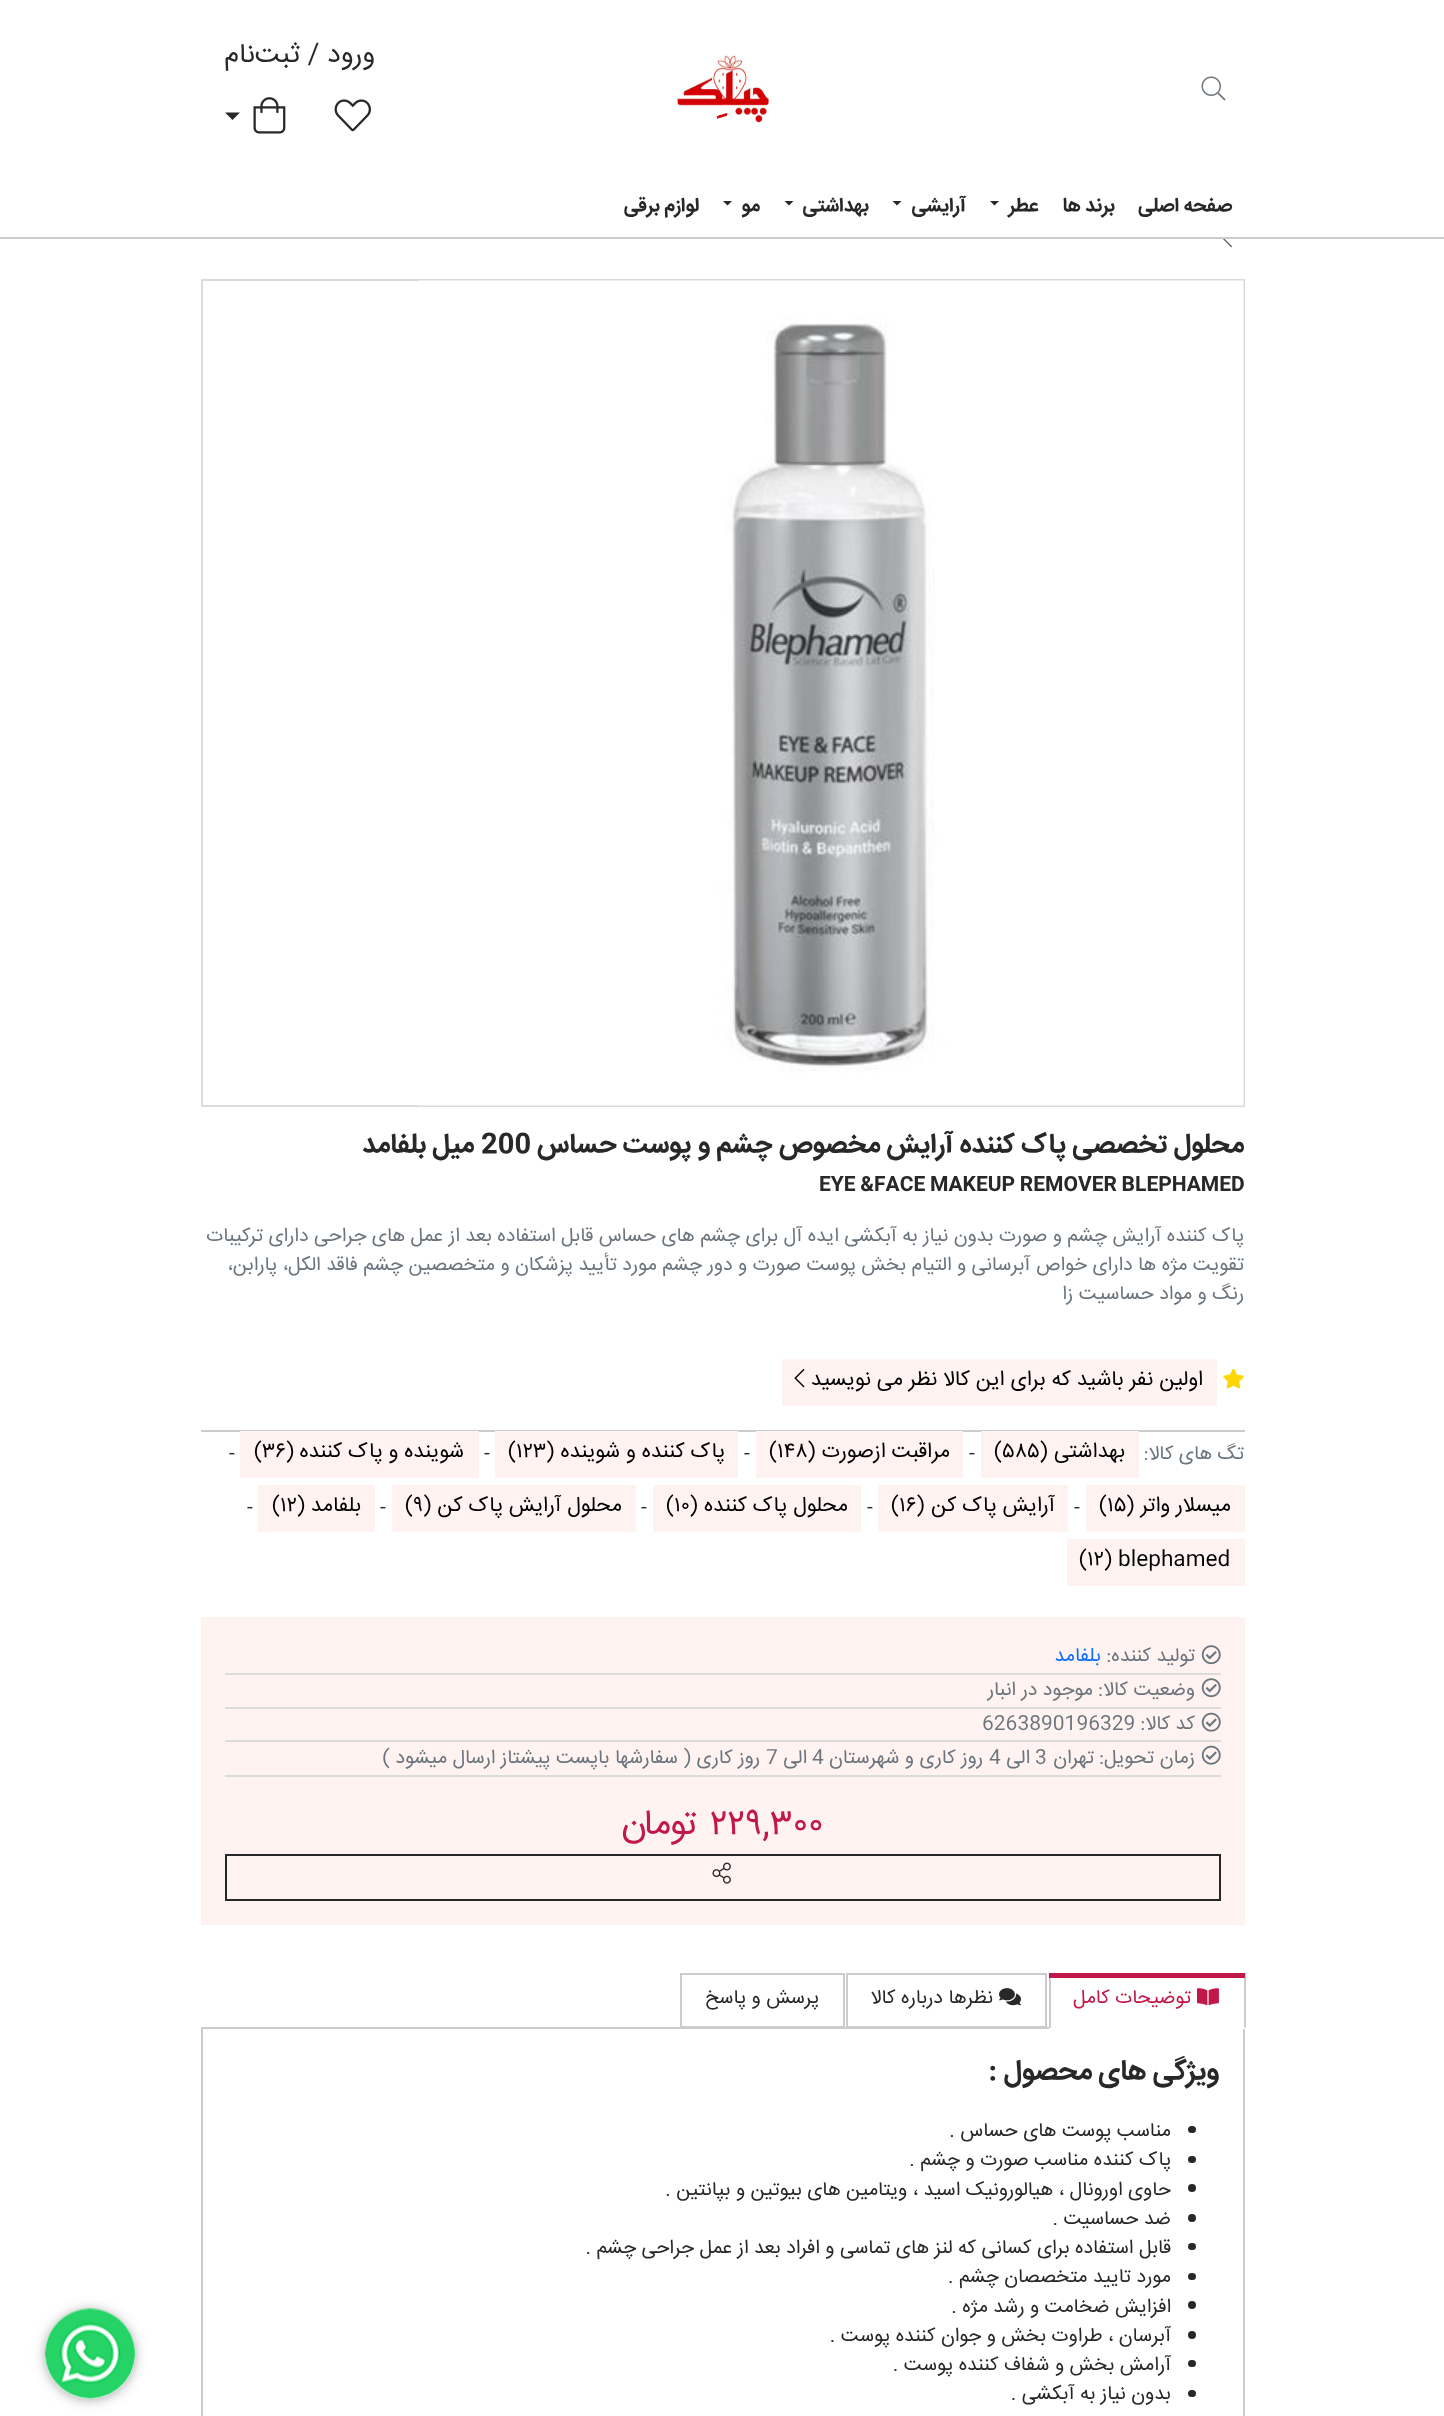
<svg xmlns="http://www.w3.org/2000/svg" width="1444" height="2416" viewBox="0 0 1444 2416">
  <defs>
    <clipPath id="clip1"><path d="M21 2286H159V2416H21ZM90 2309C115 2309 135 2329 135 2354C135 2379 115 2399 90 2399C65 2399 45 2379 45 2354C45 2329 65 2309 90 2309Z" clip-rule="evenodd"/></clipPath>
    <clipPath id="clip2"><path d="M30 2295H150V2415H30ZM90 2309C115 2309 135 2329 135 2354C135 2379 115 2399 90 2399C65 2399 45 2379 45 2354C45 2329 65 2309 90 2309Z" clip-rule="evenodd"/></clipPath>
  </defs>
  <rect width="100%" height="100%" fill="#fff"/>
  <path d="M0 237h1444v2H0z" fill="#ccc"/>
  <image x="1201" y="76" width="25" height="25" href="img/1.png"/>
  <image x="677" y="55" width="92" height="68" href="img/2.png"/>
  <image x="334" y="99" width="37" height="33" href="img/3.png"/>
  <image x="253" y="97" width="33" height="37" href="img/4.png"/>
  <path d="M225 112.5H240L232.5 120Z" fill="#282828"/>
  <path d="M990 201H999L994.5 205.5Z" fill="#282828"/>
  <path d="M892.5 201H901.5L897 205.5Z" fill="#282828"/>
  <path d="M784.5 201H793.5L789 205.5Z" fill="#282828"/>
  <path d="M723 201H732L727.5 205.5Z" fill="#282828"/>
  <image x="1223" y="239" width="9" height="9" href="img/5.png"/>
  <path d="M202 280h1042v826H202z" fill="none" stroke="#dbdbdb" stroke-width="2"/>
  <image x="418" y="280" width="826" height="826" href="img/6.png"/>
  <image x="1223" y="1369" width="21" height="20" href="img/7.png"/>
  <path d="M782 1359h435v47H782z" fill="#fef3f1"/>
  <image x="794" y="1369" width="11" height="19" href="img/8.png"/>
  <path d="M201 1430h1044v2H201z" fill="#ccc"/>
  <path d="M981 1431h158v47H981z" fill="#fef3f1"/>
  <path d="M756 1431h207v47H756z" fill="#fef3f1"/>
  <path d="M495 1431h243v47H495z" fill="#fef3f1"/>
  <path d="M240 1431h239v47H240z" fill="#fef3f1"/>
  <path d="M1086 1485h159v47H1086z" fill="#fef3f1"/>
  <path d="M878 1485h190v47H878z" fill="#fef3f1"/>
  <path d="M653 1485h208v47H653z" fill="#fef3f1"/>
  <path d="M392 1485h244v47H392z" fill="#fef3f1"/>
  <path d="M258 1485h117v47H258z" fill="#fef3f1"/>
  <path d="M1067 1539h178v47H1067z" fill="#fef3f1"/>
  <path d="M201 1617h1044v308H201z" fill="#fef3f1"/>
  <path d="M225 1673h996v2H225z" fill="#dbdbdb"/>
  <image x="1201" y="1645" width="20" height="20" href="img/9.png"/>
  <path d="M225 1707h996v2H225z" fill="#dbdbdb"/>
  <image x="1201" y="1678" width="20" height="20" href="img/9.png"/>
  <path d="M225 1740h996v2H225z" fill="#dbdbdb"/>
  <image x="1201" y="1712" width="20" height="20" href="img/10.png"/>
  <path d="M225 1775h996v2H225z" fill="#dbdbdb"/>
  <image x="1201" y="1745" width="20" height="20" href="img/10.png"/>
  <path d="M226 1855h994v45H226z" fill="none" stroke="#282828" stroke-width="2"/>
  <image x="712" y="1862" width="19" height="22" href="img/11.png"/>
  <path d="M202 2028h1042v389H202z" fill="none" stroke="#ccc" stroke-width="2"/>
  <path d="M1244 1973h2v55H1244z" fill="#ccc"/>
  <path d="M1049 2027h196v2H1049z" fill="#fff"/>
  <path d="M1049 1973h2v55H1049z" fill="#ccc"/>
  <path d="M1049 1973h196v5H1049z" fill="#c11749"/>
  <image x="1197" y="1988" width="22" height="18" href="img/12.png"/>
  <path d="M847 1974h199v53H847z" fill="none" stroke="#ccc" stroke-width="2"/>
  <image x="999" y="1988" width="22" height="18" href="img/13.png"/>
  <path d="M681 1974h163v53H681z" fill="none" stroke="#ccc" stroke-width="2"/>
  <rect x="1188" y="2126" width="8" height="7" rx="3.5" fill="#282828"/>
  <rect x="1188" y="2156" width="8" height="7" rx="3.5" fill="#282828"/>
  <circle cx="1192" cy="2188" r="4" fill="#282828"/>
  <circle cx="1192" cy="2218" r="4" fill="#282828"/>
  <rect x="1188" y="2243" width="8" height="7" rx="3.5" fill="#282828"/>
  <rect x="1188" y="2273" width="8" height="7" rx="3.5" fill="#282828"/>
  <circle cx="1192" cy="2305" r="4" fill="#282828"/>
  <circle cx="1192" cy="2335" r="4" fill="#282828"/>
  <rect x="1188" y="2360" width="8" height="7" rx="3.5" fill="#282828"/>
  <rect x="1188" y="2390" width="8" height="7" rx="3.5" fill="#282828"/>
  <g clip-path="url(#clip1)">
    <rect x="45" y="2310" width="90" height="90" rx="45" fill="#00000026" filter="blur(7.5px)"/>
  </g>
  <g clip-path="url(#clip2)">
    <rect x="45" y="2310" width="90" height="90" rx="45" fill="#00000033" filter="blur(4.5px)"/>
  </g>
  <image x="45" y="2308" width="90" height="91" href="img/14.png"/>
  <text x="375" y="62" font-family="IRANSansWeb" font-size="27.25" direction="rtl" fill="#282828">ورود / ثبت‌نام</text>
  <g font-family="IRANSansWeb" font-size="19.5" font-weight="bold" direction="rtl" fill="#282828">
    <text x="1232" y="211">صفحه اصلی</text>
    <text x="1115" y="211">برند ها</text>
    <text x="1038" y="211">عطر</text>
    <text x="966" y="211">آرایشی</text>
    <text x="869" y="211">بهداشتی</text>
    <text x="760" y="211">مو</text>
    <text x="699" y="211">لوازم برقی</text>
  </g>
  <text x="1244" y="1152" font-family="IRANSansWeb" font-size="27" font-weight="bold" direction="rtl" fill="#282828">محلول تخصصی پاک کننده آرایش مخصوص چشم و پوست حساس</text>
  <text x="481" y="1152" font-family="IRANSansWeb" font-size="27" font-weight="bold" fill="#282828">200</text>
  <text x="474" y="1152" font-family="IRANSansWeb" font-size="27" font-weight="bold" direction="rtl" fill="#282828">میل بلفامد</text>
  <text x="819" y="1190" font-family="IRANSansWeb" font-size="19.5" font-weight="bold" fill="#282828">EYE &amp;FACE MAKEUP REMOVER BLEPHAMED</text>
  <g font-family="IRANSansWeb" font-size="19.5" direction="rtl" fill="#6c757d">
    <text x="1244" y="1241">پاک کننده آرایش چشم و صورت بدون نیاز به آبکشی ایده آل برای چشم های حساس قابل استفاده بعد از عمل های جراحی دارای ترکیبات</text>
    <text x="1244" y="1270">تقویت مژه ها دارای خواص آبرسانی و التیام بخش پوست صورت و دور چشم مورد تأیید پزشکان و متخصصین چشم فاقد الکل، پارابن،</text>
    <text x="1244" y="1299">رنگ و مواد حساسیت زا</text>
  </g>
  <text x="1203" y="1385" font-family="IRANSansWeb" font-size="21" direction="rtl" fill="#000">اولین نفر باشید که برای این کالا نظر می نویسید</text>
  <text x="1244" y="1459" font-family="IRANSansWeb" font-size="19.5" direction="rtl" fill="#6c757d">تگ های کالا:</text>
  <text x="1125" y="1457" font-family="IRANSansWeb" font-size="21" direction="rtl" fill="#000">بهداشتی</text>
  <text x="994" y="1457" font-family="IRANSansWeb" font-size="21" fill="#000">(۵۸۵)</text>
  <text x="969" y="1459" font-family="IRANSansWeb" font-size="19.5" fill="#282828">-</text>
  <text x="950" y="1457" font-family="IRANSansWeb" font-size="21" direction="rtl" fill="#000">مراقبت ازصورت</text>
  <text x="769" y="1457" font-family="IRANSansWeb" font-size="21" fill="#000">(۱۴۸)</text>
  <text x="744" y="1459" font-family="IRANSansWeb" font-size="19.5" fill="#282828">-</text>
  <text x="725" y="1457" font-family="IRANSansWeb" font-size="21" direction="rtl" fill="#000">پاک کننده و شوینده</text>
  <text x="508" y="1457" font-family="IRANSansWeb" font-size="21" fill="#000">(۱۲۳)</text>
  <text x="484" y="1459" font-family="IRANSansWeb" font-size="19.5" fill="#282828">-</text>
  <text x="464" y="1457" font-family="IRANSansWeb" font-size="21" direction="rtl" fill="#000">شوینده و پاک کننده</text>
  <text x="254" y="1457" font-family="IRANSansWeb" font-size="21" fill="#000">(۳۶)</text>
  <text x="229" y="1459" font-family="IRANSansWeb" font-size="19.5" fill="#282828">-</text>
  <text x="1231" y="1511" font-family="IRANSansWeb" font-size="21" direction="rtl" fill="#000">میسلار واتر</text>
  <text x="1099" y="1511" font-family="IRANSansWeb" font-size="21" fill="#000">(۱۵)</text>
  <text x="1074" y="1513" font-family="IRANSansWeb" font-size="19.5" fill="#282828">-</text>
  <text x="1055" y="1511" font-family="IRANSansWeb" font-size="21" direction="rtl" fill="#000">آرایش پاک کن</text>
  <text x="891" y="1511" font-family="IRANSansWeb" font-size="21" fill="#000">(۱۶)</text>
  <text x="867" y="1513" font-family="IRANSansWeb" font-size="19.5" fill="#282828">-</text>
  <text x="848" y="1511" font-family="IRANSansWeb" font-size="21" direction="rtl" fill="#000">محلول پاک کننده</text>
  <text x="666" y="1511" font-family="IRANSansWeb" font-size="21" fill="#000">(۱۰)</text>
  <text x="641" y="1513" font-family="IRANSansWeb" font-size="19.5" fill="#282828">-</text>
  <text x="622" y="1511" font-family="IRANSansWeb" font-size="21" direction="rtl" fill="#000">محلول آرایش پاک کن</text>
  <text x="405" y="1511" font-family="IRANSansWeb" font-size="21" fill="#000">(۹)</text>
  <text x="380" y="1513" font-family="IRANSansWeb" font-size="19.5" fill="#282828">-</text>
  <text x="361" y="1511" font-family="IRANSansWeb" font-size="21" direction="rtl" fill="#000">بلفامد</text>
  <text x="272" y="1511" font-family="IRANSansWeb" font-size="21" fill="#000">(۱۲)</text>
  <text x="247" y="1513" font-family="IRANSansWeb" font-size="19.5" fill="#282828">-</text>
  <g font-family="IRANSansWeb" font-size="21" fill="#000">
    <text x="1118" y="1565">blephamed</text>
    <text x="1079" y="1565">(۱۲)</text>
  </g>
  <text x="1195" y="1661" font-family="IRANSansWeb" font-size="19.5" direction="rtl" fill="#6c757d">تولید کننده:</text>
  <text x="1101" y="1661" font-family="IRANSansWeb" font-size="19.5" direction="rtl" fill="#0d6efd">بلفامد</text>
  <g font-family="IRANSansWeb" font-size="19.5" direction="rtl" fill="#6c757d">
    <text x="1195" y="1695">وضعیت کالا:</text>
    <text x="1093" y="1695">موجود در انبار</text>
    <text x="1195" y="1729">کد کالا:</text>
  </g>
  <text x="982" y="1729" font-family="IRANSansWeb" font-size="19.5" fill="#6c757d">6263890196329</text>
  <g font-family="IRANSansWeb" font-size="19.5" direction="rtl" fill="#6c757d">
    <text x="1195" y="1763">زمان تحویل:</text>
    <text x="1094" y="1763">تهران</text>
  </g>
  <text x="1035" y="1763" font-family="IRANSansWeb" font-size="19.5" fill="#6c757d">3</text>
  <text x="1030" y="1763" font-family="IRANSansWeb" font-size="19.5" direction="rtl" fill="#6c757d">الی</text>
  <text x="989" y="1763" font-family="IRANSansWeb" font-size="19.5" fill="#6c757d">4</text>
  <text x="983" y="1763" font-family="IRANSansWeb" font-size="19.5" direction="rtl" fill="#6c757d">روز کاری و شهرستان</text>
  <text x="812" y="1763" font-family="IRANSansWeb" font-size="19.5" fill="#6c757d">4</text>
  <text x="807" y="1763" font-family="IRANSansWeb" font-size="19.5" direction="rtl" fill="#6c757d">الی</text>
  <text x="766" y="1763" font-family="IRANSansWeb" font-size="19.5" fill="#6c757d">7</text>
  <text x="760" y="1763" font-family="IRANSansWeb" font-size="19.5" direction="rtl" fill="#6c757d">روز کاری ( سفارشها باپست پیشتاز ارسال میشود )</text>
  <text x="710" y="1834" font-family="IRANSansWeb" font-size="36" fill="#c11749">۲۲۹,۳۰۰</text>
  <text x="699" y="1834" font-family="IRANSansWeb" font-size="36" direction="rtl" fill="#c11749">تومان</text>
  <text x="1191" y="2003" font-family="IRANSansWeb" font-size="19.5" direction="rtl" fill="#c11749">توضیحات کامل</text>
  <g font-family="IRANSansWeb" font-size="19.5" direction="rtl" fill="#282828">
    <text x="993" y="2003">نظرها درباره کالا</text>
    <text x="819" y="2003">پرسش و پاسخ</text>
  </g>
  <text x="1219" y="2079" font-family="IRANSansWeb" font-size="28" font-weight="bold" direction="rtl" fill="#282828">ویژگی های محصول :</text>
  <g font-family="IRANSansWeb" font-size="19.5" direction="rtl" fill="#282828">
    <text x="1171" y="2136">مناسب پوست های حساس .</text>
    <text x="1171" y="2165">پاک کننده مناسب صورت و چشم .</text>
    <text x="1171" y="2195">حاوی اورونال ، هیالورونیک اسید ، ویتامین های بیوتین و بپانتین .</text>
    <text x="1171" y="2224">ضد حساسیت .</text>
    <text x="1171" y="2253">قابل استفاده برای کسانی که لنز های تماسی و افراد بعد از عمل جراحی چشم .</text>
    <text x="1171" y="2282">مورد تایید متخصصان چشم .</text>
    <text x="1171" y="2312">افزایش ضخامت و رشد مژه .</text>
    <text x="1171" y="2341">آبرسان ، طراوت بخش و جوان کننده پوست .</text>
    <text x="1171" y="2370">آرامش بخش و شفاف کننده پوست .</text>
    <text x="1171" y="2399">بدون نیاز به آبکشی .</text>
  </g>
</svg>
